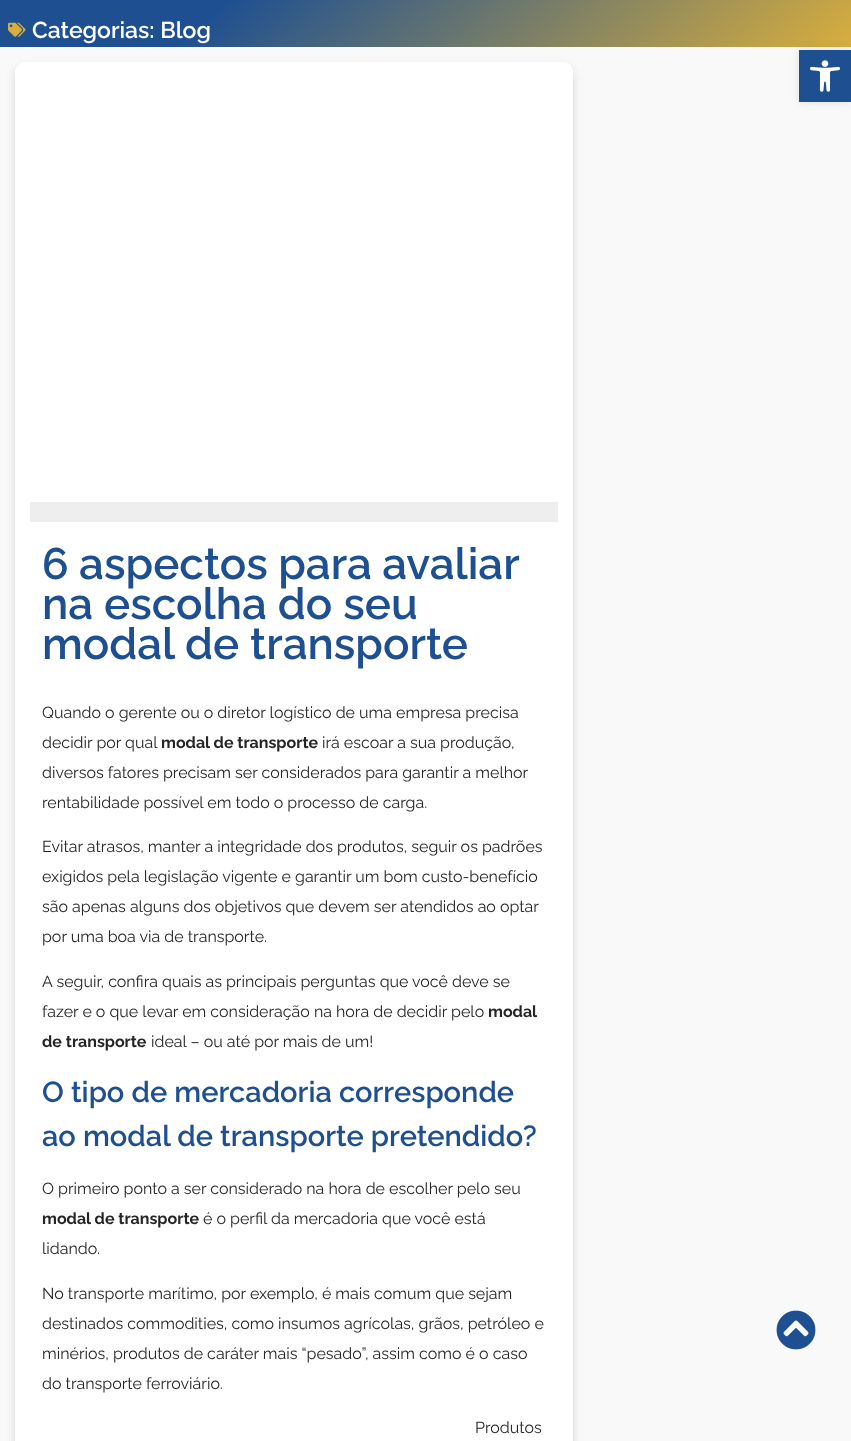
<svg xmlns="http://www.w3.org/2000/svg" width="851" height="1441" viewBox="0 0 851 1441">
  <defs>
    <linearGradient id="g1" gradientUnits="userSpaceOnUse" x1="238" y1="-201" x2="613" y2="246"><stop offset="0.25" stop-color="#1d4f91"/><stop offset="1" stop-color="#d8ae3e"/></linearGradient>
  </defs>
  <rect width="100%" height="100%" fill="#fff"/>
  <path d="M0 0h851v47H0z" fill="url(#g1)"/>
  <image x="8" y="22" width="18" height="15" href="img/1.png"/>
  <path d="M0 47h851v1394H0z" fill="#f9f9f9"/>
  <rect x="15" y="67" width="558" height="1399" rx="10" fill="#00000026" filter="blur(5px)"/>
  <rect x="15" y="62" width="558" height="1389" rx="10" fill="#fff"/>
  <path d="M30 502h528v20H30z" fill="#eee"/>
  <path d="M799 50h52v52H799z" fill="#0000001a" filter="blur(5px)"/>
  <path d="M799 50h52v52H799z" fill="#1d4f91"/>
  <image x="810" y="60" width="30" height="32" href="img/2.png"/>
  <image x="776" y="1310" width="40" height="40" href="img/3.png"/>
  <text x="32" y="38" font-family="Raleway" font-size="23" font-weight="600" fill="#fff">Categorias: Blog</text>
  <g font-family="Raleway" font-size="44" font-weight="600" fill="#1d4f91">
    <text x="42" y="579" word-spacing="-0.5">6 aspectos para avaliar</text>
    <text x="42" y="619">na escolha do seu</text>
    <text x="42" y="659">modal de transporte</text>
  </g>
  <g font-family="Raleway" font-size="16" fill="#252525">
    <text x="42" y="718">Quando o gerente ou o diretor logístico de uma empresa precisa</text>
    <text x="42" y="748">decidir por qual</text>
  </g>
  <text x="161" y="748" font-family="Raleway" font-size="16" font-weight="bold" fill="#252525">modal de transporte</text>
  <g font-family="Raleway" font-size="16" fill="#252525">
    <text x="322" y="748">irá escoar a sua produção,</text>
    <text x="42" y="778">diversos fatores precisam ser considerados para garantir a melhor</text>
    <text x="42" y="808">rentabilidade possível em todo o processo de carga.</text>
    <text x="42" y="852">Evitar atrasos, manter a integridade dos produtos, seguir os padrões</text>
    <text x="42" y="882">exigidos pela legislação vigente e garantir um bom custo-benefício</text>
    <text x="42" y="912">são apenas alguns dos objetivos que devem ser atendidos ao optar</text>
    <text x="42" y="942">por uma boa via de transporte.</text>
    <text x="42" y="987">A seguir, confira quais as principais perguntas que você deve se</text>
    <text x="42" y="1017">fazer e o que levar em consideração na hora de decidir pelo</text>
  </g>
  <g font-family="Raleway" font-size="16" font-weight="bold" fill="#252525">
    <text x="488" y="1017">modal</text>
    <text x="42" y="1047">de transporte</text>
  </g>
  <text x="151" y="1047" font-family="Raleway" font-size="16" fill="#252525">ideal – ou até por mais de um!</text>
  <g font-family="Raleway" font-size="29" font-weight="600" fill="#1d4f91">
    <text x="42" y="1102">O tipo de mercadoria corresponde</text>
    <text x="42" y="1146">ao modal de transporte pretendido?</text>
  </g>
  <text x="42" y="1194" font-family="Raleway" font-size="16" fill="#252525">O primeiro ponto a ser considerado na hora de escolher pelo seu</text>
  <text x="42" y="1224" font-family="Raleway" font-size="16" font-weight="bold" fill="#252525">modal de transporte</text>
  <g font-family="Raleway" font-size="16" fill="#252525">
    <text x="203" y="1224">é o perfil da mercadoria que você está</text>
    <text x="42" y="1254">lidando.</text>
    <text x="42" y="1299">No transporte marítimo, por exemplo, é mais comum que sejam</text>
    <text x="42" y="1329">destinados commodities, como insumos agrícolas, grãos, petróleo e</text>
    <text x="42" y="1359">minérios, produtos de caráter mais “pesado”, assim como é o caso</text>
    <text x="42" y="1389">do transporte ferroviário.</text>
    <text x="475" y="1433">Produtos</text>
  </g>
</svg>
